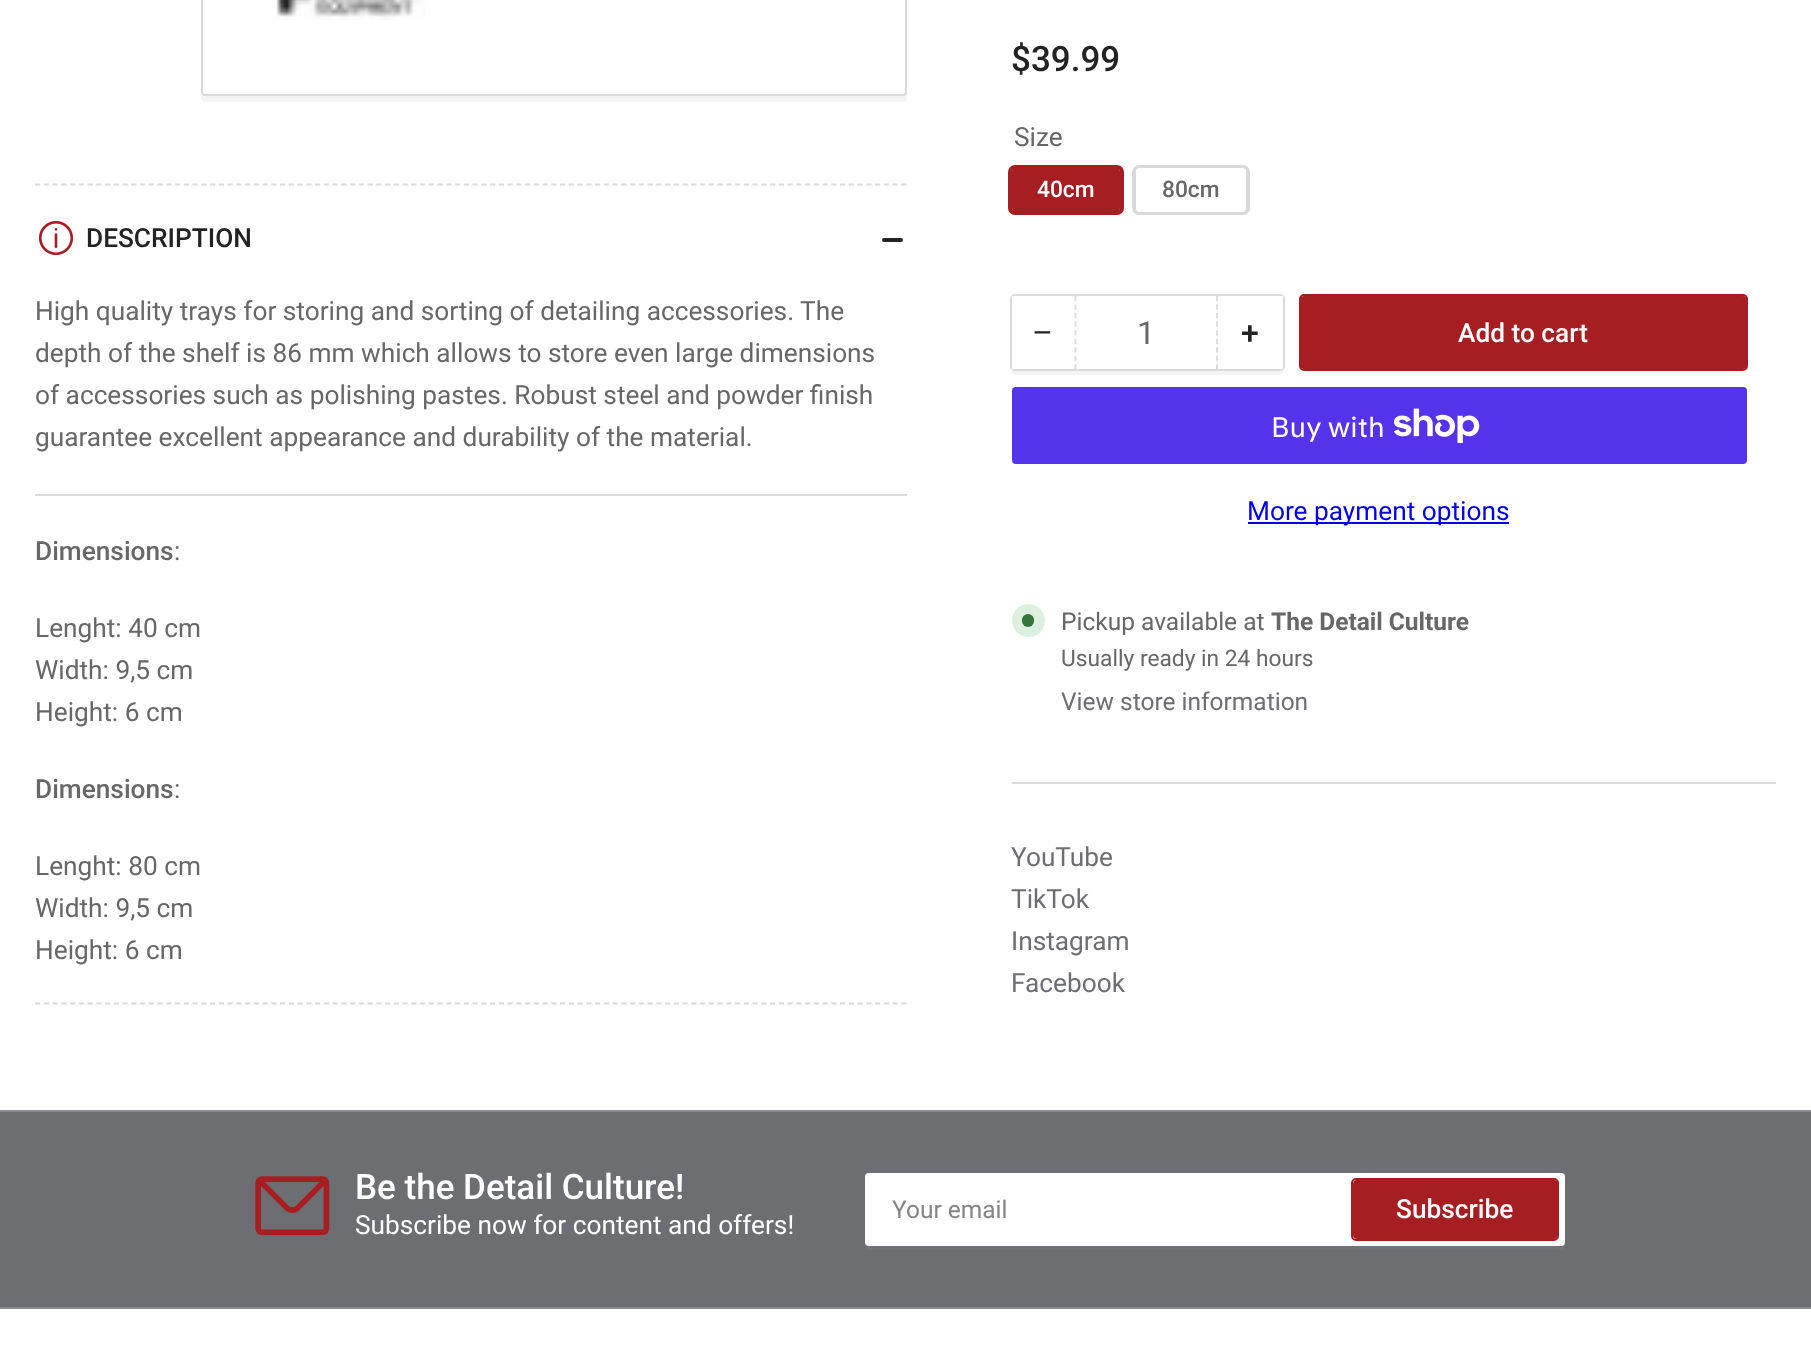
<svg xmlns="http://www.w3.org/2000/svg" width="1811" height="1351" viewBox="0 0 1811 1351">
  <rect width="100%" height="100%" fill="#fff"/>
  <path d="M201-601V98C201 100 203 102 205 102H903C905 102 907 100 907 98V-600L906-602V93C906 95 905 96 903 96H205C203 96 201 95 201 93Z" fill="#f4f4f4"/>
  <rect x="202" y="-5" width="704" height="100" rx="3" fill="#fff" stroke="#dadada" stroke-width="2"/>
  <image x="276" y="0" width="150" height="20" href="img/1.png"/>
  <rect x="1010" y="167" width="112" height="46" rx="5" fill="none" stroke="#a71e22" stroke-width="4"/>
  <rect x="1012" y="168" width="108" height="44" rx="4" fill="#a71e22"/>
  <rect x="1134" y="167" width="114" height="46" rx="5" fill="none" stroke="#dadada" stroke-width="4"/>
  <rect x="1136" y="168" width="110" height="44" rx="4" fill="#fff"/>
  <path d="M1012 368V371C1012 373 1014 375 1016 375H1279C1281 375 1283 373 1283 371V304V366C1283 368 1281 369 1279 369H1015C1014 369 1013 369 1012 368Z" fill="#f4f4f4"/>
  <rect x="1011" y="295" width="273" height="75" rx="4" fill="none" stroke="#dadada" stroke-width="2"/>
  <path d="M1012 296h3v73H1012z" fill="#fff"/>
  <path d="M1217 296V369" fill="none" stroke="#dadada" stroke-width="1.8" stroke-dasharray="5.25 3.29"/>
  <path d="M1075.5 296V369" fill="none" stroke="#dadada" stroke-width="1.8" stroke-dasharray="5.25 3.29"/>
  <path d="M1280 296h3v73H1280z" fill="#fff"/>
  <rect x="1300" y="295" width="447" height="75" rx="4" fill="none" stroke="#a71e22" stroke-width="2"/>
  <rect x="1300" y="296" width="447" height="73" rx="4" fill="#a71e22"/>
  <rect x="1012" y="387" width="735" height="77" rx="4" fill="#5433eb"/>
  <image x="1394" y="408" width="86" height="35" href="img/2.png"/>
  <path d="M1248 522h261v2H1248z" fill="#00e"/>
  <circle cx="1028.5" cy="620.5" r="16.5" fill="#ddf0df"/>
  <rect x="1022" y="614" width="12" height="13" rx="6" fill="#337239"/>
  <path d="M1012 782h764v2H1012z" fill="#dadada"/>
  <path d="M35 184.5H906.5" fill="none" stroke="#dadada" stroke-width="1.8" stroke-dasharray="5.25 3.5"/>
  <path d="M35 1003.5H906.5" fill="none" stroke="#dadada" stroke-width="1.8" stroke-dasharray="5.25 3.5"/>
  <image x="38" y="220" width="36" height="36" href="img/3.png"/>
  <rect x="882" y="238" width="14" height="4" rx="2" fill="#232323"/>
  <rect x="891" y="238" width="12" height="4" rx="2" fill="#232323"/>
  <path d="M35 494h872v2H35z" fill="#dadada"/>
  <path d="M0 1112h1811v195H0z" fill="#6d6e72"/>
  <path d="M0 1110h1811v2H0z" fill="#8a8b8e"/>
  <path d="M0 1307h1811v2H0z" fill="#8a8b8e"/>
  <image x="255" y="1176" width="75" height="60" href="img/4.png"/>
  <path d="M865 1244V1246C865 1248 867 1250 869 1250H1561C1563 1250 1565 1248 1565 1246V1180L1564 1178V1242C1564 1244 1563 1246 1561 1246H868C867 1246 866 1245 865 1244Z" fill="#727377"/>
  <rect x="865" y="1173" width="700" height="73" rx="4" fill="#fff"/>
  <rect x="866" y="1174" width="698" height="71" rx="3" fill="none" stroke="#ffffff33" stroke-width="2"/>
  <rect x="1352" y="1179" width="206" height="61" rx="4" fill="none" stroke="#a71e22" stroke-width="2"/>
  <rect x="1353" y="1180" width="205" height="59" rx="4" fill="#a71e22"/>
  <text x="1011" y="71" font-family="Roboto" font-size="35" font-weight="500" fill="#232323">$39.99</text>
  <text x="1014" y="146" font-family="Roboto" font-size="26.25" fill="#676767">Size</text>
  <text x="1037" y="197" font-family="Roboto" font-size="22.75" font-weight="500" fill="#fff">40cm</text>
  <text x="1162" y="197" font-family="Roboto" font-size="22.75" font-weight="500" fill="#676767">80cm</text>
  <text x="1033" y="343" font-family="Liberation Sans" font-size="32" fill="#232323">−</text>
  <text x="1137" y="344" font-family="Roboto" font-size="32" fill="#676767">1</text>
  <text x="1241" y="344" font-family="Roboto" font-size="32" font-weight="500" fill="#232323">+</text>
  <text x="1458" y="342" font-family="Roboto" font-size="26.25" font-weight="500" fill="#fff">Add to cart</text>
  <text x="1271" y="437" font-family="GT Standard" font-size="28" fill="#fff">Buy with</text>
  <text x="1247" y="520" font-family="Roboto" font-size="26.25" fill="#00e">More payment options</text>
  <text x="1061" y="630" font-family="Roboto" font-size="24.5" fill="#676767">Pickup available at</text>
  <text x="1271" y="630" font-family="Roboto" font-size="24.5" font-weight="bold" fill="#676767">The Detail Culture</text>
  <text x="1061" y="666" font-family="Roboto" font-size="22.75" fill="#676767">Usually ready in 24 hours</text>
  <text x="1061" y="710" font-family="Roboto" font-size="24.5" fill="#6d6e72">View store information</text>
  <g font-family="Roboto" font-size="26.25" fill="#6d6e72">
    <text x="1011" y="866">YouTube</text>
    <text x="1011" y="908">TikTok</text>
    <text x="1011" y="950">Instagram</text>
    <text x="1011" y="992">Facebook</text>
  </g>
  <text x="86" y="247" font-family="Roboto" font-size="26.25" font-weight="500" fill="#232323">DESCRIPTION</text>
  <g font-family="Roboto" font-size="26.25" fill="#676767">
    <text x="35" y="320">High quality trays for storing and sorting of detailing accessories. The</text>
    <text x="35" y="362">depth of the shelf is 86 mm which allows to store even large dimensions</text>
    <text x="35" y="404">of accessories such as polishing pastes. Robust steel and powder finish</text>
    <text x="35" y="446">guarantee excellent appearance and durability of the material.</text>
  </g>
  <text x="35" y="560" font-family="Roboto" font-size="26.25" font-weight="500" fill="#676767">Dimensions</text>
  <g font-family="Roboto" font-size="26.25" fill="#676767">
    <text x="174" y="560">:</text>
    <text x="35" y="637">Lenght: 40 cm</text>
    <text x="35" y="679">Width: 9,5 cm</text>
    <text x="35" y="721">Height: 6 cm</text>
  </g>
  <text x="35" y="798" font-family="Roboto" font-size="26.25" font-weight="500" fill="#676767">Dimensions</text>
  <g font-family="Roboto" font-size="26.25" fill="#676767">
    <text x="174" y="798">:</text>
    <text x="35" y="875">Lenght: 80 cm</text>
    <text x="35" y="917">Width: 9,5 cm</text>
    <text x="35" y="959">Height: 6 cm</text>
  </g>
  <text x="355" y="1199" font-family="Roboto" font-size="35" font-weight="500" fill="#fff">Be the Detail Culture!</text>
  <text x="355" y="1234" font-family="Roboto" font-size="26.25" fill="#fff">Subscribe now for content and offers!</text>
  <text x="892" y="1218" font-family="Roboto" font-size="24.5" fill="#858585">Your email</text>
  <text x="1396" y="1218" font-family="Roboto" font-size="26.25" font-weight="500" fill="#fff">Subscribe</text>
</svg>
